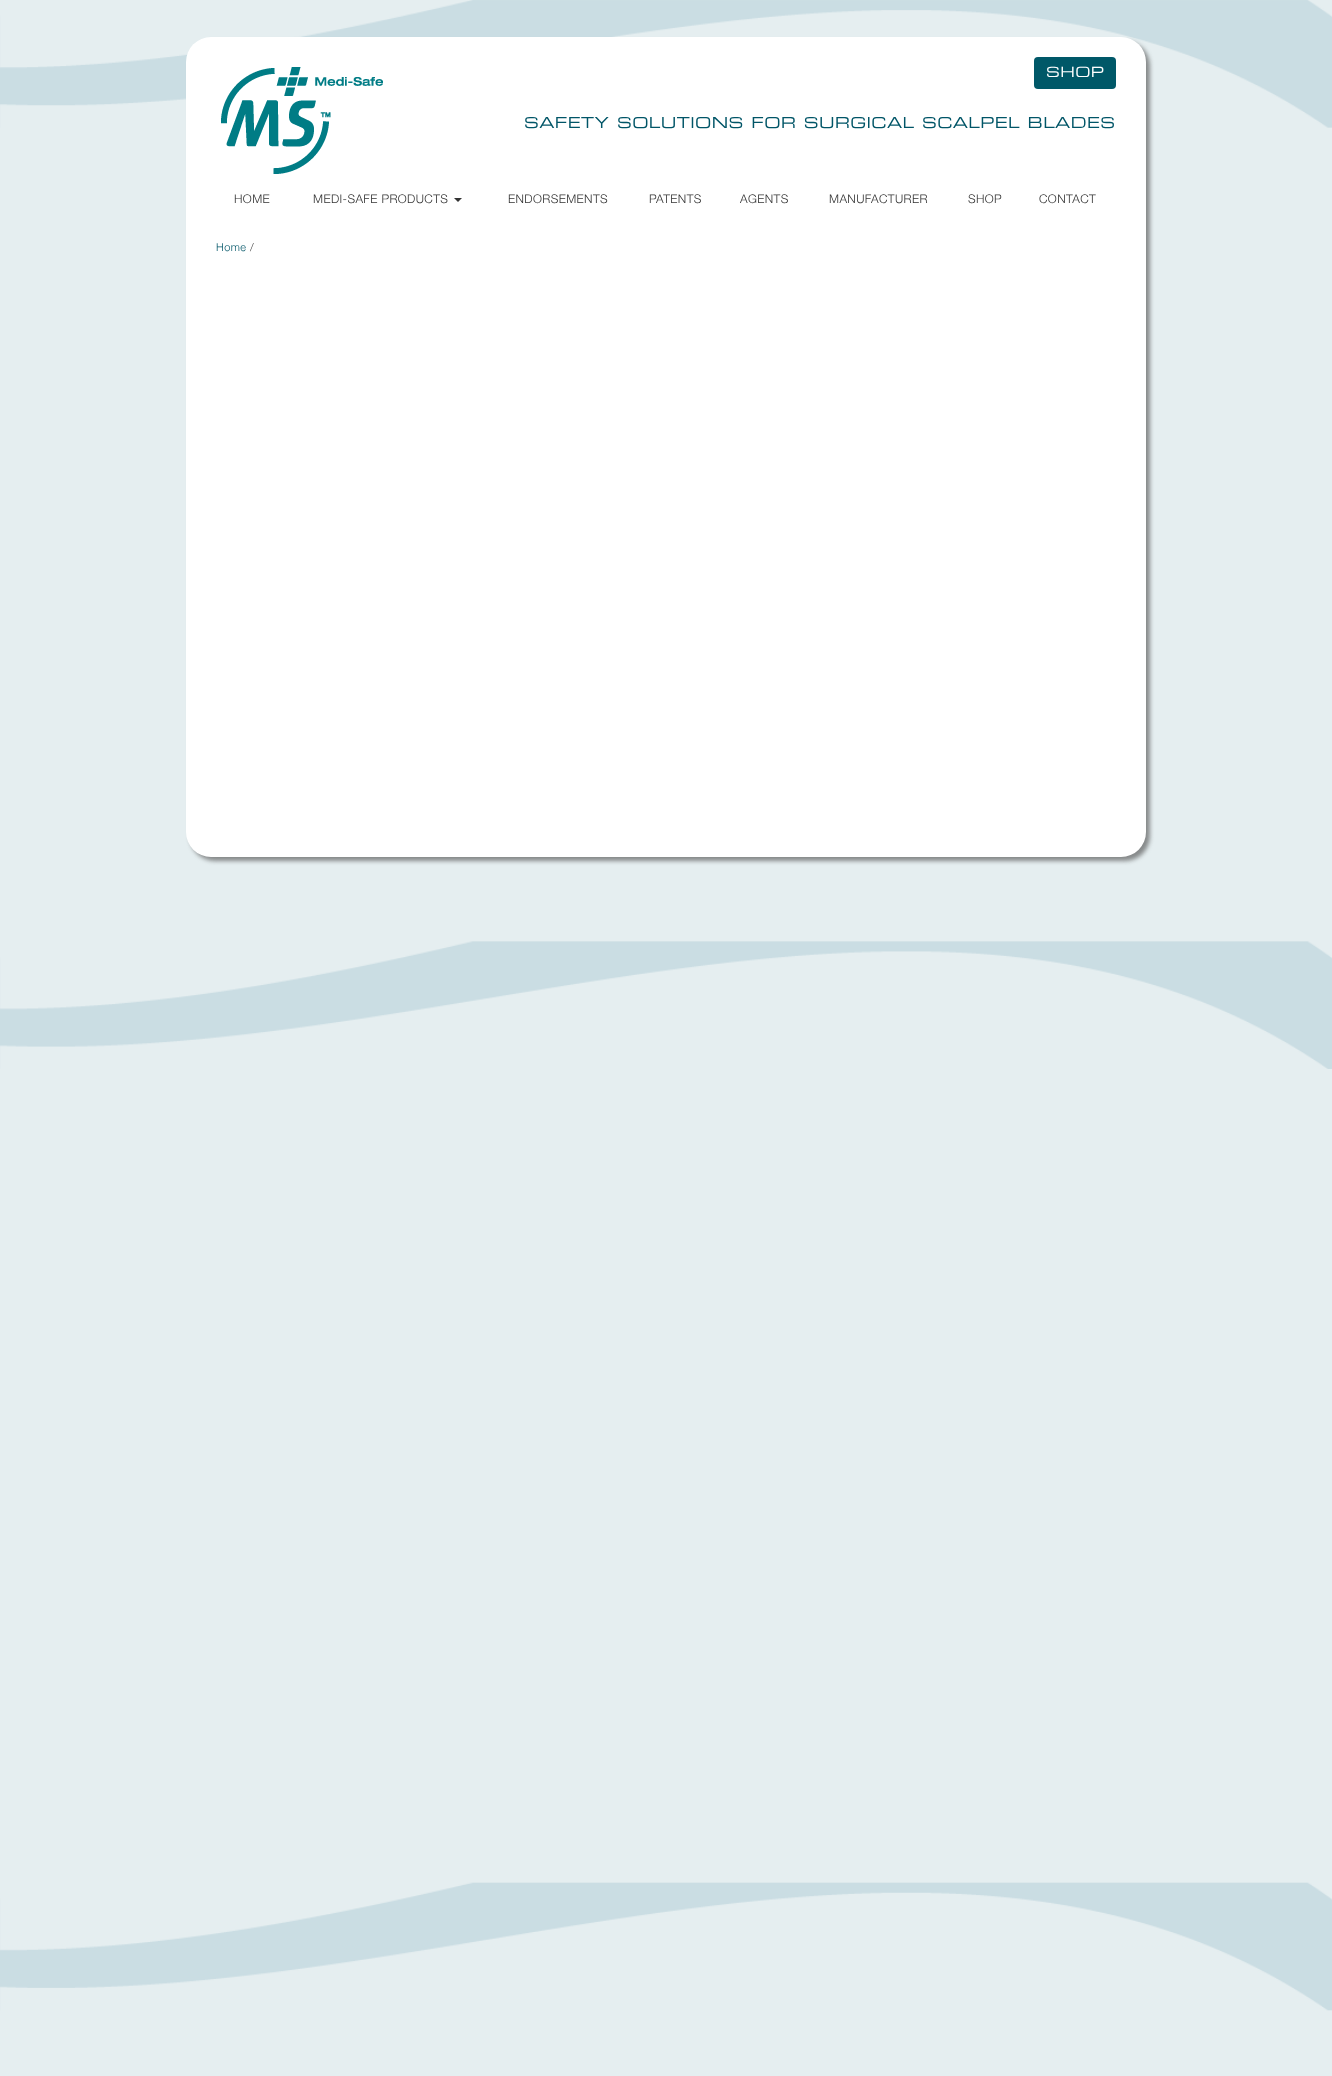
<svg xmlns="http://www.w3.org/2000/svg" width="1332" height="2076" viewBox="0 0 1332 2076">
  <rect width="100%" height="100%" fill="#fff"/>
  <image x="0" y="0" width="1332" height="2076" href="img/1.png"/>
  <rect x="190" y="41" width="960" height="820" rx="25" fill="#555555a6" filter="blur(2px)"/>
  <rect x="186" y="37" width="960" height="820" rx="25" fill="#fff"/>
  <image x="221" y="67" width="162" height="107" href="img/2.png"/>
  <rect x="1034" y="57" width="82" height="32" rx="4" fill="#005868"/>
  <path d="M454 198H462L458 202Z" fill="#333"/>
  <text x="1046" y="77" font-family="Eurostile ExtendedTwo" font-size="14" letter-spacing="0.4" fill="#fff">SHOP</text>
  <text x="524" y="128" font-family="Eurostile ExtendedTwo" font-size="15" letter-spacing="0.4" fill="#005567">SAFETY SOLUTIONS FOR SURGICAL SCALPEL BLADES</text>
  <g font-family="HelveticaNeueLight" font-size="12" font-weight="300" letter-spacing="0.4" fill="#333">
    <text x="234" y="203">HOME</text>
    <text x="313" y="203">MEDI-SAFE PRODUCTS</text>
    <text x="508" y="203">ENDORSEMENTS</text>
    <text x="649" y="203">PATENTS</text>
    <text x="740" y="203">AGENTS</text>
    <text x="829" y="203">MANUFACTURER</text>
    <text x="968" y="203">SHOP</text>
    <text x="1039" y="203">CONTACT</text>
  </g>
  <text x="216" y="251" font-family="HelveticaNeueLight" font-size="11" font-weight="300" letter-spacing="0.4" fill="#005567">Home</text>
  <text x="250" y="251" font-family="HelveticaNeueLight" font-size="11" font-weight="300" letter-spacing="0.4" fill="#333">/</text>
</svg>
